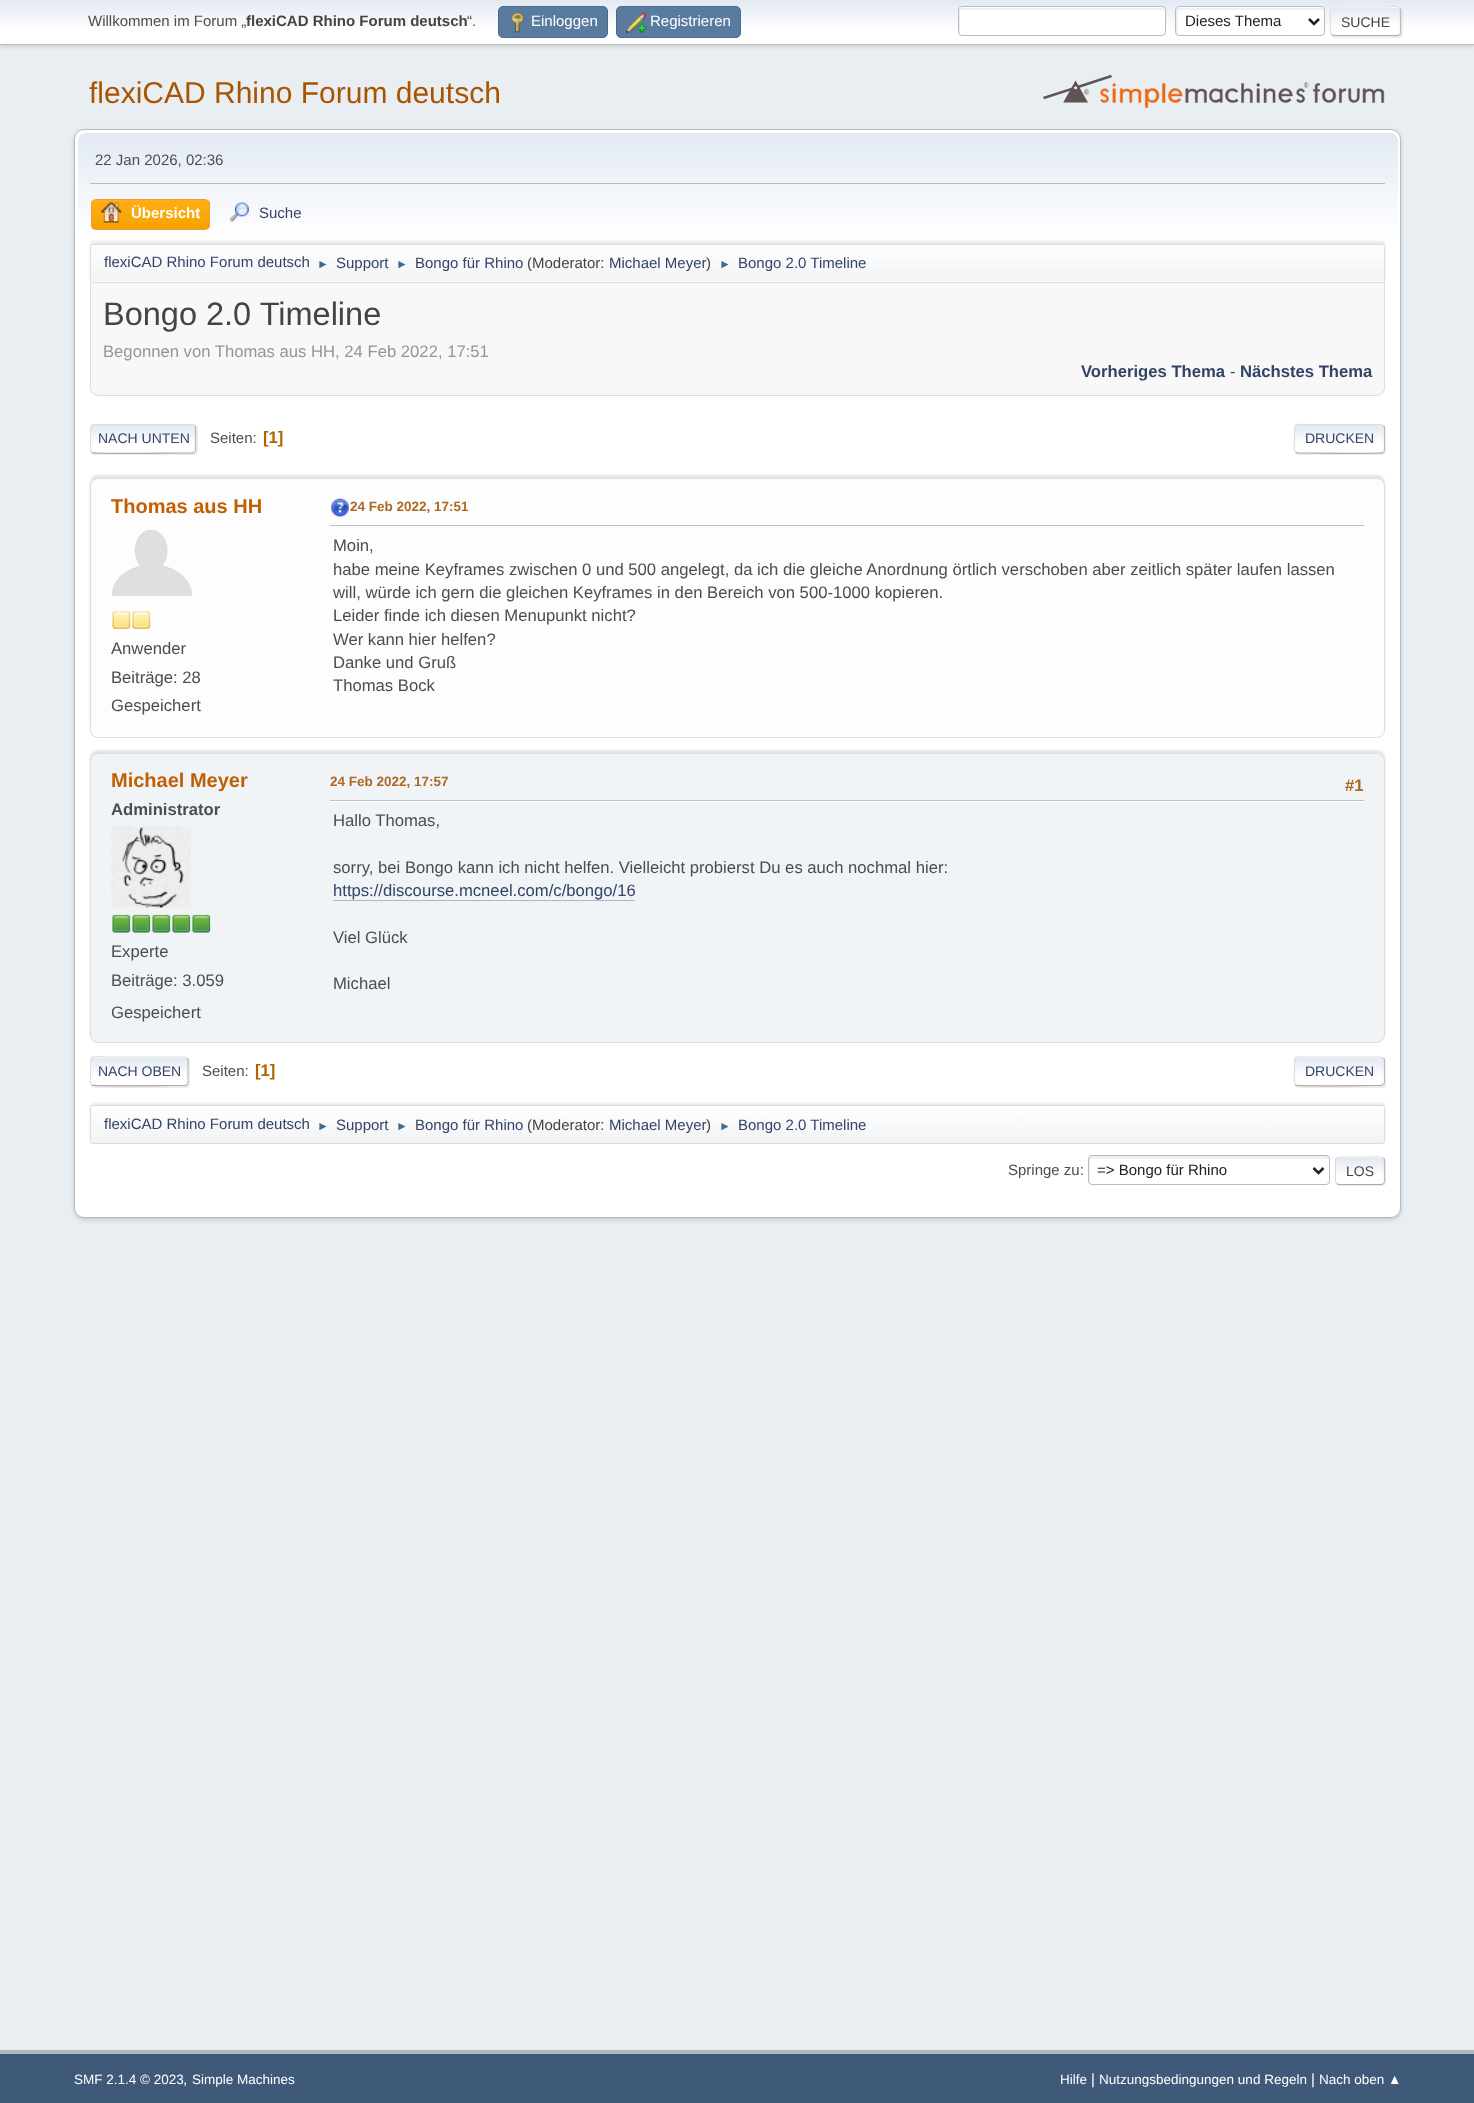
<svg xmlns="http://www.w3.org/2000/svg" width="1474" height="2103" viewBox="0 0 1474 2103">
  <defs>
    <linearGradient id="g1" gradientUnits="userSpaceOnUse" x1="738" y1="0" x2="738" y2="44"><stop offset="0" stop-color="#e2e9f3"/><stop offset="0.7" stop-color="#fff"/></linearGradient>
    <clipPath id="clip1"><rect x="1330" y="6" width="71" height="30" rx="4"/></clipPath>
    <linearGradient id="g2" gradientUnits="userSpaceOnUse" x1="1366" y1="-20" x2="1366" y2="7.5"><stop offset="0" stop-color="#e2e9f3"/><stop offset="0.7" stop-color="#fff"/></linearGradient>
    <linearGradient id="g3" gradientUnits="userSpaceOnUse" x1="1366" y1="7.5" x2="1366" y2="35"><stop offset="0" stop-color="#e2e9f3"/><stop offset="0.7" stop-color="#fff"/></linearGradient>
    <linearGradient id="g4" gradientUnits="userSpaceOnUse" x1="1366" y1="35" x2="1366" y2="63"><stop offset="0" stop-color="#e2e9f3"/><stop offset="0.7" stop-color="#fff"/></linearGradient>
    <linearGradient id="g5" gradientUnits="userSpaceOnUse" x1="738" y1="132" x2="738" y2="285"><stop offset="0" stop-color="#e2e9f3"/><stop offset="0.7" stop-color="#fff"/></linearGradient>
    <clipPath id="clip2"><rect x="91" y="199" width="119" height="31" rx="5"/></clipPath>
    <linearGradient id="g6" gradientUnits="userSpaceOnUse" x1="151" y1="200" x2="151" y2="229"><stop offset="0" stop-color="#ffae14"/><stop offset="1" stop-color="#f5a100"/></linearGradient>
    <linearGradient id="g7" gradientUnits="userSpaceOnUse" x1="738" y1="245" x2="738" y2="281"><stop offset="0" stop-color="#fff"/><stop offset="0.95" stop-color="#f1f3f5"/></linearGradient>
    <clipPath id="clip3"><rect x="90" y="424" width="106" height="30" rx="4"/></clipPath>
    <linearGradient id="g8" gradientUnits="userSpaceOnUse" x1="143" y1="425" x2="143" y2="453"><stop offset="0" stop-color="#e2e9f3"/><stop offset="0.7" stop-color="#fff"/></linearGradient>
    <linearGradient id="g9" gradientUnits="userSpaceOnUse" x1="143" y1="453" x2="143" y2="480"><stop offset="0" stop-color="#e2e9f3"/><stop offset="0.7" stop-color="#fff"/></linearGradient>
    <clipPath id="clip4"><path d="M90 415h1295v48H90z"/></clipPath>
    <clipPath id="clip5"><path d="M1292 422H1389V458H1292ZM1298 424H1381C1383 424 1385 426 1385 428V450C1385 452 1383 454 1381 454H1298C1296 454 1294 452 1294 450V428C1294 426 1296 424 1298 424Z" clip-rule="evenodd"/></clipPath>
    <clipPath id="clip6"><rect x="1294" y="424" width="91" height="30" rx="4"/></clipPath>
    <linearGradient id="g10" gradientUnits="userSpaceOnUse" x1="1339" y1="425" x2="1339" y2="453"><stop offset="0" stop-color="#e2e9f3"/><stop offset="0.7" stop-color="#fff"/></linearGradient>
    <linearGradient id="g11" gradientUnits="userSpaceOnUse" x1="1339" y1="453" x2="1339" y2="480"><stop offset="0" stop-color="#e2e9f3"/><stop offset="0.7" stop-color="#fff"/></linearGradient>
    <clipPath id="clip7"><rect x="90" y="1056" width="99" height="30" rx="4"/></clipPath>
    <linearGradient id="g12" gradientUnits="userSpaceOnUse" x1="139" y1="1058" x2="139" y2="1085"><stop offset="0" stop-color="#e2e9f3"/><stop offset="0.7" stop-color="#fff"/></linearGradient>
    <linearGradient id="g13" gradientUnits="userSpaceOnUse" x1="139" y1="1085" x2="139" y2="1113"><stop offset="0" stop-color="#e2e9f3"/><stop offset="0.7" stop-color="#fff"/></linearGradient>
    <clipPath id="clip8"><path d="M90 1048h1295v47H90z"/></clipPath>
    <clipPath id="clip9"><rect x="1294" y="1056" width="91" height="30" rx="4"/></clipPath>
    <linearGradient id="g14" gradientUnits="userSpaceOnUse" x1="1339" y1="1058" x2="1339" y2="1085"><stop offset="0" stop-color="#e2e9f3"/><stop offset="0.7" stop-color="#fff"/></linearGradient>
    <clipPath id="clip10"><rect x="90" y="1105" width="1295" height="39" rx="2.5"/></clipPath>
    <linearGradient id="g15" gradientUnits="userSpaceOnUse" x1="738" y1="1106" x2="738" y2="1143"><stop offset="0" stop-color="#fff"/><stop offset="0.95" stop-color="#f1f3f5"/></linearGradient>
    <clipPath id="clip11"><rect x="1335" y="1156" width="50" height="29" rx="4"/></clipPath>
    <linearGradient id="g16" gradientUnits="userSpaceOnUse" x1="1360" y1="1158" x2="1360" y2="1184"><stop offset="0" stop-color="#e2e9f3"/><stop offset="0.7" stop-color="#fff"/></linearGradient>
  </defs>
  <rect width="100%" height="100%" fill="#e9eef2"/>
  <path d="M0 1h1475v45H0z" fill="#00000029" filter="blur(2.5px)"/>
  <path d="M0 0h1474v44H0z" fill="url(#g1)"/>
  <path d="M0 44h1474v1H0z" fill="#bbb"/>
  <rect x="498.5" y="6.5" width="109" height="31" rx="4.5" fill="#597b9f" stroke="#4a6b8c"/>
  <image x="511" y="12" width="13" height="21" href="img/1.png"/>
  <rect x="616.5" y="6.5" width="124" height="31" rx="4.5" fill="#597b9f" stroke="#4a6b8c"/>
  <image x="626" y="12" width="21" height="21" href="img/2.png"/>
  <rect x="958" y="6" width="208" height="30" rx="4" fill="#fff"/>
  <path d="M962 10H1165C1165 9 1164 8 1162 8H962C960 8 959 9 959 10V32C959 33 959 34 960 35V12C960 11 961 10 962 10Z" fill="#ecf1f8"/>
  <rect x="958.5" y="6.5" width="207" height="29" rx="3.5" fill="none" stroke="#bbb"/>
  <rect x="1175" y="6" width="150" height="30" rx="4" fill="#fff"/>
  <path d="M1180 10H1322H1324C1324 9 1323 8 1322 8H1178C1177 8 1176 9 1176 10V32C1176 34 1177 35 1178 35V12C1178 11 1179 10 1180 10Z" fill="#ecf1f8"/>
  <rect x="1175.5" y="6.5" width="149" height="29" rx="3.5" fill="none" stroke="#bbb"/>
  <path d="M1309 19L1314 24L1319 19" fill="none" stroke="#222" stroke-width="2.5"/>
  <rect x="1331" y="8" width="72" height="30" rx="4" fill="#dddddd91" filter="blur(0.5px)"/>
  <g clip-path="url(#clip1)">
    <path d="M1330 6h71v2H1330z" fill="url(#g2)"/>
    <path d="M1330 8h71v27H1330z" fill="url(#g3)"/>
    <path d="M1330 35h71v1H1330z" fill="url(#g4)"/>
  </g>
  <path d="M1399.5 8C1400.5 8.5 1400.5 9 1400.5 10V32.5C1400.5 33.5 1400.5 34 1399.5 34.5" fill="none" stroke="#bbb" stroke-width="1.2"/>
  <path d="M1399.5 34.5L1397.5 35.5H1334L1331.5 34.5" fill="none" stroke="#aaa" stroke-width="1.2"/>
  <path d="M1331.5 34.5C1329.5 32.5 1330.5 24 1330.5 21C1330.5 5 1328 7 1344.5 7H1387C1387 7 1397 5.5 1399.5 8" fill="none" stroke="#ddd" stroke-width="1.2"/>
  <image x="1043" y="74" width="342" height="34" href="img/3.png"/>
  <rect x="74" y="131" width="1327" height="1089" rx="10" fill="#00000024" filter="blur(2px)"/>
  <rect x="74.5" y="129.5" width="1326" height="1088" rx="9.5" fill="#fff" stroke="#b8b8b8"/>
  <path d="M86 133H1390C1394.5 133 1398 136.5 1398 141V285H78V141C78 136.5 81.5 133 86 133Z" fill="url(#g5)"/>
  <path d="M90 183h1295v1H90z" fill="#bbb"/>
  <g clip-path="url(#clip2)">
    <path d="M91 200h119v29H91z" fill="url(#g6)"/>
  </g>
  <rect x="91.5" y="199.5" width="118" height="30" rx="4.5" fill="none" stroke="#f49a3a"/>
  <image x="101" y="202" width="21" height="21" href="img/4.png"/>
  <image x="229" y="202" width="20" height="20" href="img/5.png"/>
  <rect x="90" y="241" width="1295" height="39" rx="2.5" fill="#00000014" filter="blur(1px)"/>
  <rect x="90" y="244" width="1295" height="39" rx="2.5" fill="#fff"/>
  <path d="M90 245h1295v36H90z" fill="url(#g7)"/>
  <rect x="90.5" y="244.5" width="1294" height="38" rx="2" fill="none" stroke="#ddd"/>
  <path d="M90 283H1385V387C1385 392 1381 396 1376 396H99C94 396 90 392 90 387Z" fill="#f8f8f8"/>
  <path d="M90 282H1385V388C1385 392 1381 396 1376 396H99C94 396 90 392 90 388ZM91 282H1384V388C1384 392 1380 395 1376 395H99C95 395 91 392 91 388Z" fill="#ddd" fill-rule="evenodd"/>
  <rect x="91" y="425" width="107" height="30" rx="4" fill="#dddddd91" filter="blur(0.5px)"/>
  <g clip-path="url(#clip3)">
    <path d="M90 425h106v28H90z" fill="url(#g8)"/>
    <path d="M90 453h106v1H90z" fill="url(#g9)"/>
  </g>
  <path d="M194.5 425.5C195.5 426 195.5 426.5 195.5 427.5V450C195.5 451 195.5 451.5 194.5 452" fill="none" stroke="#bbb" stroke-width="1.2"/>
  <path d="M194.5 452L192.5 453H176C167 453 94 454 92 452.5L91.5 452" fill="none" stroke="#aaa" stroke-width="1.2"/>
  <g clip-path="url(#clip4)">
    <path d="M91.5 452C89.5 450 90.5 441.5 90.5 439V431C90.5 429 90 424.5 94 424.5H176H194L194.5 425.5" fill="none" stroke="#ddd" stroke-width="1.2"/>
  </g>
  <g clip-path="url(#clip5)">
    <rect x="1295" y="425" width="91" height="30" rx="4" fill="#dddddd91" filter="blur(0.5px)"/>
  </g>
  <rect x="1294" y="424" width="91" height="30" rx="4" fill="#fff"/>
  <g clip-path="url(#clip6)">
    <path d="M1294 425h91v28H1294z" fill="url(#g10)"/>
    <path d="M1294 453h91v1H1294z" fill="url(#g11)"/>
  </g>
  <g clip-path="url(#clip4)">
    <path d="M1383.5 425.5C1384 426 1384.5 426.5 1384.5 427.5V450C1384.5 451 1384 451.5 1383.5 452" fill="none" stroke="#bbb" stroke-width="1.2"/>
  </g>
  <path d="M1383.5 452L1383 452.5C1381 454 1319.5 453 1311.5 453H1297.5L1295.5 452" fill="none" stroke="#aaa" stroke-width="1.2"/>
  <path d="M1295.5 452C1293 450 1294.5 441.5 1294.5 439C1294.5 421 1292 424.5 1311.5 424.5H1381L1383.5 425.5" fill="none" stroke="#ddd" stroke-width="1.2"/>
  <rect x="90" y="475" width="1295" height="260" rx="8" fill="#0000001a" filter="blur(1px)"/>
  <rect x="90.5" y="478.5" width="1294" height="259" rx="7.5" fill="#fdfdfd" stroke="#ddd"/>
  <image x="112" y="530" width="80" height="66" href="img/6.png"/>
  <image x="112" y="611" width="19" height="18" href="img/7.png"/>
  <image x="132" y="611" width="19" height="18" href="img/7.png"/>
  <image x="331" y="498" width="18" height="19" href="img/8.png"/>
  <path d="M330 525h1034v1H330z" fill="#bfbfbf"/>
  <rect x="90" y="750" width="1295" height="290" rx="8" fill="#0000001a" filter="blur(1px)"/>
  <rect x="90.5" y="753.5" width="1294" height="289" rx="7.5" fill="#f0f4f7" stroke="#ddd"/>
  <image x="111" y="826" width="81" height="82" href="img/9.png"/>
  <image x="112" y="914" width="19" height="19" href="img/10.png"/>
  <image x="132" y="914" width="19" height="19" href="img/10.png"/>
  <image x="152" y="914" width="19" height="19" href="img/10.png"/>
  <image x="172" y="914" width="19" height="19" href="img/10.png"/>
  <image x="192" y="914" width="19" height="19" href="img/10.png"/>
  <path d="M330 801h1034v1H330z" fill="#fff"/>
  <path d="M330 800h1034v1H330z" fill="#bfbfbf"/>
  <path d="M333 900h302v1H333z" fill="#a8b6cf"/>
  <rect x="91" y="1058" width="99" height="30" rx="4" fill="#dddddd91" filter="blur(0.5px)"/>
  <rect x="90" y="1056" width="99" height="30" rx="4" fill="#fff"/>
  <g clip-path="url(#clip7)">
    <path d="M90 1058h99v27H90z" fill="url(#g12)"/>
    <path d="M90 1085h99v1H90z" fill="url(#g13)"/>
  </g>
  <path d="M187 1058C188 1058.5 188 1059 188 1060V1082.5C188 1083.5 188 1084 187 1084.5" fill="none" stroke="#bbb" stroke-width="1.2"/>
  <path d="M187 1084.5L185 1085.5H170C161.5 1085.5 94 1086.5 92 1085L91.5 1084.5" fill="none" stroke="#aaa" stroke-width="1.2"/>
  <g clip-path="url(#clip8)">
    <path d="M91.5 1084.5C89.5 1082.5 90.5 1074 90.5 1071C90.5 1053 88.5 1057 109 1057H185L187 1058" fill="none" stroke="#ddd" stroke-width="1.2"/>
  </g>
  <rect x="1295" y="1058" width="91" height="30" rx="4" fill="#dddddd91" filter="blur(0.5px)"/>
  <rect x="1294" y="1056" width="91" height="30" rx="4" fill="#fff"/>
  <g clip-path="url(#clip9)">
    <path d="M1294 1058h91v27H1294z" fill="url(#g14)"/>
  </g>
  <g clip-path="url(#clip8)">
    <path d="M1383.5 1058C1384 1058.5 1384.5 1059 1384.5 1060V1082.5C1384.5 1083.5 1384 1084 1383.5 1084.5" fill="none" stroke="#bbb" stroke-width="1.2"/>
  </g>
  <path d="M1383.5 1084.5L1381 1085.5H1367.5C1359.5 1085.5 1297.5 1086.5 1295.5 1085V1084.5" fill="none" stroke="#aaa" stroke-width="1.2"/>
  <path d="M1295.5 1084.5C1293 1082.5 1294.5 1074 1294.5 1071C1294.5 1053.5 1292 1057 1311.5 1057H1381L1383.5 1058" fill="none" stroke="#ddd" stroke-width="1.2"/>
  <rect x="90" y="1103" width="1295" height="38" rx="2.5" fill="#00000014" filter="blur(1px)"/>
  <g clip-path="url(#clip10)">
    <path d="M90 1106h1295v37H90z" fill="url(#g15)"/>
  </g>
  <rect x="90.5" y="1105.5" width="1294" height="38" rx="2" fill="none" stroke="#ddd"/>
  <path d="M1092 1159H1329C1329 1158 1329 1157 1327 1156H1092C1088 1156 1089 1160 1089 1162V1170C1089 1172 1088 1182 1090 1184V1161C1090 1160 1091 1159 1092 1159Z" fill="#ecf1f8"/>
  <rect x="1088.5" y="1155.5" width="241" height="29" rx="3.5" fill="none" stroke="#bbb"/>
  <path d="M1313.5 1168L1318.5 1173L1323.5 1168" fill="none" stroke="#222" stroke-width="2.5"/>
  <rect x="1336" y="1158" width="50" height="28" rx="4" fill="#dddddd91" filter="blur(0.5px)"/>
  <rect x="1335" y="1156" width="50" height="29" rx="4" fill="#fff"/>
  <g clip-path="url(#clip11)">
    <path d="M1335 1158h50v26H1335z" fill="url(#g16)"/>
  </g>
  <path d="M1383.5 1158C1384 1158.5 1384.5 1159 1384.5 1160V1181C1384.5 1182 1384 1183 1383.5 1183.5" fill="none" stroke="#bbb" stroke-width="1.2"/>
  <path d="M1383.5 1183.5L1381.5 1184.5H1338.5L1336.5 1183.5" fill="none" stroke="#aaa" stroke-width="1.2"/>
  <path d="M1336.5 1183.5C1334.5 1181.5 1335.5 1173 1335.5 1170.5C1335.5 1157 1333 1157 1346 1157H1374C1375 1157 1381.5 1156 1383.5 1158" fill="none" stroke="#ddd" stroke-width="1.2"/>
  <path d="M0 2054h1474v49H0z" fill="#3e5a78"/>
  <path d="M0 2050h1474v4H0z" fill="#b2b6bd"/>
  <text x="88" y="26" font-family="Liberation Sans" font-size="15" fill="#4d4d4d">Willkommen im Forum „</text>
  <text x="246" y="26" font-family="Liberation Sans" font-size="15" font-weight="bold" fill="#444">flexiCAD Rhino Forum deutsch</text>
  <text x="467" y="26" font-family="Liberation Sans" font-size="15" fill="#4d4d4d">“.</text>
  <g font-family="Liberation Sans" font-size="15" fill="#fff">
    <text x="531" y="26">Einloggen</text>
    <text x="650" y="26">Registrieren</text>
  </g>
  <text x="1185" y="26" font-family="Liberation Sans" font-size="15" fill="#222">Dieses Thema</text>
  <text x="1341" y="27" font-family="Liberation Sans" font-size="14" fill="#444">SUCHE</text>
  <text x="89" y="103" font-family="Liberation Sans" font-size="30" fill="#a85400">flexiCAD Rhino Forum deutsch</text>
  <text x="95" y="165" font-family="Liberation Sans" font-size="15" fill="#4d4d4d">22 Jan 2026, 02:36</text>
  <text x="131" y="218" font-family="Liberation Sans" font-size="15" font-weight="bold" fill="#fff">Übersicht</text>
  <g font-family="Liberation Sans" font-size="15" fill="#346">
    <text x="259" y="218">Suche</text>
    <text x="104" y="267">flexiCAD Rhino Forum deutsch</text>
  </g>
  <text x="317" y="268" font-family="Liberation Sans" font-size="12" fill="#3f6b8c">►</text>
  <text x="336" y="268" font-family="Liberation Sans" font-size="15" fill="#346">Support</text>
  <text x="396" y="268" font-family="Liberation Sans" font-size="12" fill="#3f6b8c">►</text>
  <text x="415" y="268" font-family="Liberation Sans" font-size="15" fill="#346">Bongo für Rhino</text>
  <text x="527" y="268" font-family="Liberation Sans" font-size="15" fill="#444">(Moderator:</text>
  <text x="609" y="268" font-family="Liberation Sans" font-size="15" fill="#346">Michael Meyer</text>
  <text x="706" y="268" font-family="Liberation Sans" font-size="15" fill="#444">)</text>
  <text x="719" y="268" font-family="Liberation Sans" font-size="12" fill="#3f6b8c">►</text>
  <text x="738" y="268" font-family="Liberation Sans" font-size="15" fill="#346">Bongo 2.0 Timeline</text>
  <text x="103" y="325" font-family="Liberation Sans" font-size="32.5" fill="#444">Bongo 2.0 Timeline</text>
  <text x="103" y="357" font-family="Liberation Sans" font-size="16.67" fill="#959595">Begonnen von Thomas aus HH, 24 Feb 2022, 17:51</text>
  <text x="1081" y="377" font-family="Liberation Sans" font-size="16.67" font-weight="bold" fill="#346">Vorheriges Thema</text>
  <text x="1230" y="377" font-family="Liberation Sans" font-size="16.67" fill="#4d4d4d">-</text>
  <text x="1240" y="377" font-family="Liberation Sans" font-size="16.67" font-weight="bold" fill="#346">Nächstes Thema</text>
  <text x="98" y="443" font-family="Liberation Sans" font-size="14" fill="#346">NACH UNTEN</text>
  <text x="210" y="443" font-family="Liberation Sans" font-size="15" fill="#4d4d4d">Seiten:</text>
  <text x="263" y="443" font-family="Liberation Sans" font-size="16.67" font-weight="bold" fill="#b46100">[1]</text>
  <text x="1305" y="443" font-family="Liberation Sans" font-size="14" fill="#346">DRUCKEN</text>
  <text x="111" y="513" font-family="Liberation Sans" font-size="20" font-weight="bold" fill="#c06002">Thomas aus HH</text>
  <g font-family="Liberation Sans" font-size="16.67" fill="#4d4d4d">
    <text x="111" y="654">Anwender</text>
    <text x="111" y="683">Beiträge: 28</text>
    <text x="111" y="711">Gespeichert</text>
  </g>
  <text x="350" y="511" font-family="Liberation Sans" font-size="13.5" font-weight="bold" fill="#ad6825">24 Feb 2022, 17:51</text>
  <g font-family="Liberation Sans" font-size="16.67" fill="#4d4d4d">
    <text x="333" y="551">Moin,</text>
    <text x="333" y="575">habe meine Keyframes zwischen 0 und 500 angelegt, da ich die gleiche Anordnung örtlich verschoben aber zeitlich später laufen lassen</text>
    <text x="333" y="598">will, würde ich gern die gleichen Keyframes in den Bereich von 500-1000 kopieren.</text>
    <text x="333" y="621">Leider finde ich diesen Menupunkt nicht?</text>
    <text x="333" y="645">Wer kann hier helfen?</text>
    <text x="333" y="668">Danke und Gruß</text>
    <text x="333" y="691">Thomas Bock</text>
  </g>
  <text x="111" y="787" font-family="Liberation Sans" font-size="20" font-weight="bold" fill="#c06002">Michael Meyer</text>
  <text x="111" y="815" font-family="Liberation Sans" font-size="16.67" font-weight="bold" fill="#4d4d4d">Administrator</text>
  <g font-family="Liberation Sans" font-size="16.67" fill="#4d4d4d">
    <text x="111" y="957">Experte</text>
    <text x="111" y="986">Beiträge: 3.059</text>
    <text x="111" y="1018">Gespeichert</text>
  </g>
  <text x="330" y="786" font-family="Liberation Sans" font-size="13.5" font-weight="bold" fill="#ad6825">24 Feb 2022, 17:57</text>
  <text x="1345" y="791" font-family="Liberation Sans" font-size="16.67" font-weight="bold" fill="#ad6825">#1</text>
  <g font-family="Liberation Sans" font-size="16.67" fill="#4d4d4d">
    <text x="333" y="826">Hallo Thomas,</text>
    <text x="333" y="873">sorry, bei Bongo kann ich nicht helfen. Vielleicht probierst Du es auch nochmal hier:</text>
  </g>
  <text x="333" y="896" font-family="Liberation Sans" font-size="16.67" fill="#346">https://discourse.mcneel.com/c/bongo/16</text>
  <g font-family="Liberation Sans" font-size="16.67" fill="#4d4d4d">
    <text x="333" y="943">Viel Glück</text>
    <text x="333" y="989">Michael</text>
  </g>
  <text x="98" y="1076" font-family="Liberation Sans" font-size="14" fill="#346">NACH OBEN</text>
  <text x="202" y="1076" font-family="Liberation Sans" font-size="15" fill="#4d4d4d">Seiten:</text>
  <text x="255" y="1076" font-family="Liberation Sans" font-size="16.67" font-weight="bold" fill="#b46100">[1]</text>
  <text x="1305" y="1076" font-family="Liberation Sans" font-size="14" fill="#346">DRUCKEN</text>
  <text x="104" y="1129" font-family="Liberation Sans" font-size="15" fill="#346">flexiCAD Rhino Forum deutsch</text>
  <text x="317" y="1130" font-family="Liberation Sans" font-size="12" fill="#3f6b8c">►</text>
  <text x="336" y="1130" font-family="Liberation Sans" font-size="15" fill="#346">Support</text>
  <text x="396" y="1130" font-family="Liberation Sans" font-size="12" fill="#3f6b8c">►</text>
  <text x="415" y="1130" font-family="Liberation Sans" font-size="15" fill="#346">Bongo für Rhino</text>
  <text x="527" y="1130" font-family="Liberation Sans" font-size="15" fill="#444">(Moderator:</text>
  <text x="609" y="1130" font-family="Liberation Sans" font-size="15" fill="#346">Michael Meyer</text>
  <text x="706" y="1130" font-family="Liberation Sans" font-size="15" fill="#444">)</text>
  <text x="719" y="1130" font-family="Liberation Sans" font-size="12" fill="#3f6b8c">►</text>
  <text x="738" y="1130" font-family="Liberation Sans" font-size="15" fill="#346">Bongo 2.0 Timeline</text>
  <text x="1008" y="1175" font-family="Liberation Sans" font-size="15" fill="#4d4d4d">Springe zu:</text>
  <text x="1097" y="1175" font-family="Liberation Sans" font-size="15" fill="#222">=&gt; Bongo für Rhino</text>
  <text x="1346" y="1176" font-family="Liberation Sans" font-size="14" fill="#444">LOS</text>
  <text x="74" y="2084" font-family="Liberation Sans" font-size="13.5" fill="#fff">SMF 2.1.4 © 2023</text>
  <text x="183" y="2084" font-family="Liberation Sans" font-size="15" fill="#fff">,</text>
  <g font-family="Liberation Sans" font-size="13.5" fill="#fff">
    <text x="192" y="2084">Simple Machines</text>
    <text x="1060" y="2084">Hilfe</text>
  </g>
  <text x="1091" y="2084" font-family="Liberation Sans" font-size="15" fill="#fff">|</text>
  <text x="1099" y="2084" font-family="Liberation Sans" font-size="13.5" fill="#fff">Nutzungsbedingungen und Regeln</text>
  <text x="1311" y="2084" font-family="Liberation Sans" font-size="15" fill="#fff">|</text>
  <text x="1319" y="2084" font-family="Liberation Sans" font-size="13.5" fill="#fff">Nach oben ▲</text>
</svg>
